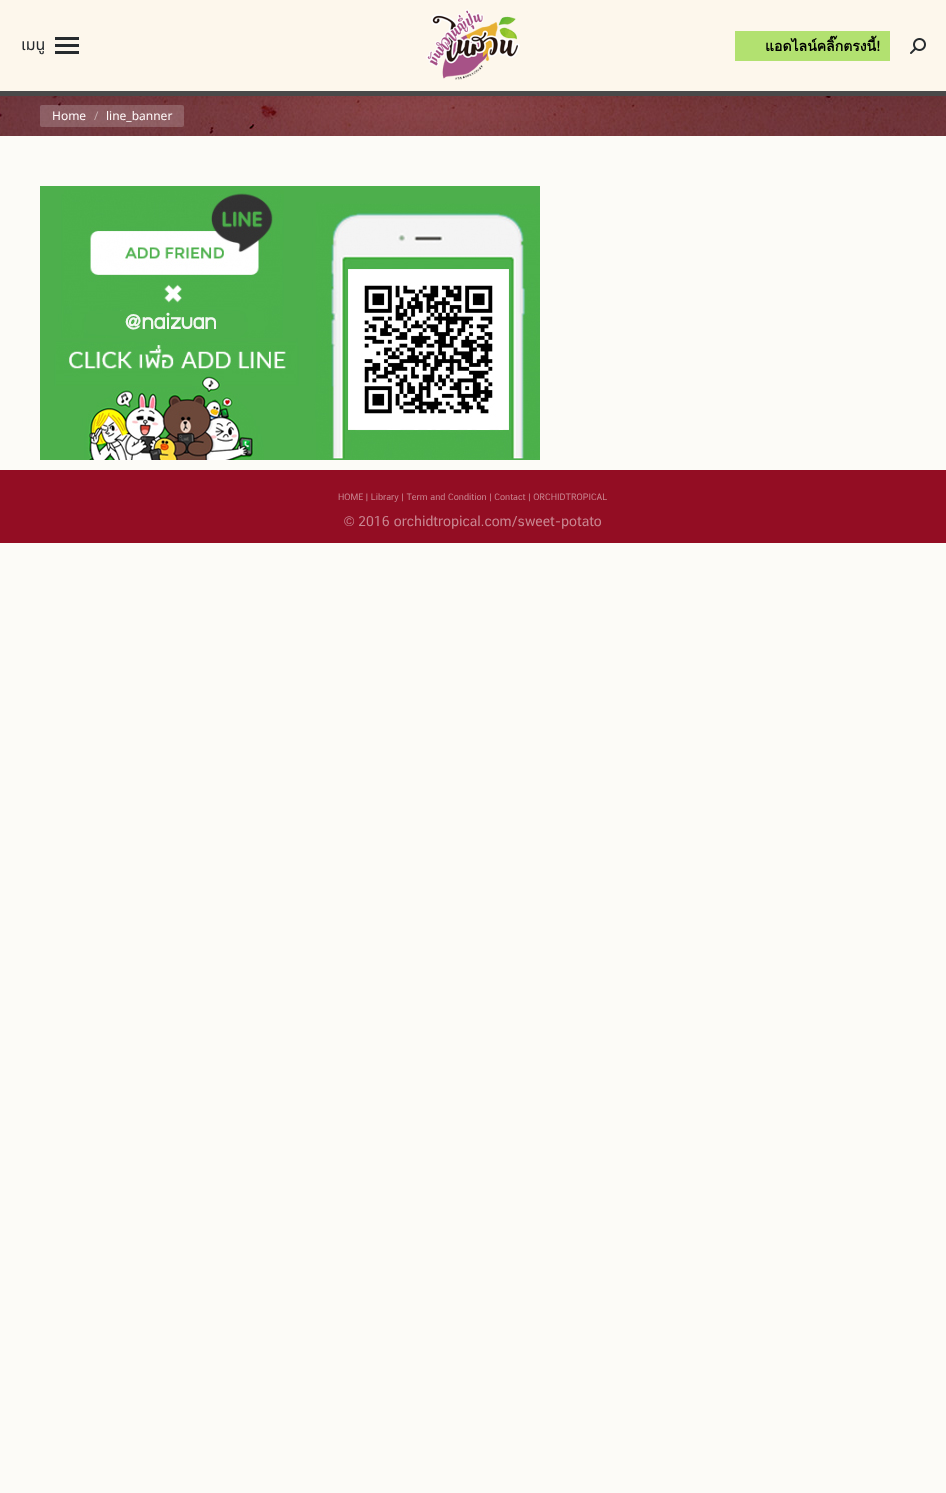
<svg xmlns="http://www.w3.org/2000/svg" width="946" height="1493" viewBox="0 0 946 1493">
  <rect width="100%" height="100%" fill="#fcfbf7"/>
  <image x="0" y="96" width="946" height="40" href="img/3.png"/>
  <rect x="40" y="105" width="144" height="22" rx="2" fill="#ffffff33"/>
  <path d="M-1 -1h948v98H-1z" fill="#00000012" filter="blur(7.5px)"/>
  <path d="M0 0h946v91H0z" fill="#fdf7ec"/>
  <path d="M0 91h946v5H0z" fill="#494949"/>
  <path d="M55 37h24v3H55z" fill="#262b2e"/>
  <path d="M55 44h24v3H55z" fill="#262b2e"/>
  <path d="M55 51h24v3H55z" fill="#262b2e"/>
  <image x="426" y="9" width="94" height="71" href="img/1.png"/>
  <path d="M735 31h155v30H735z" fill="#b2e170"/>
  <image x="910" y="38" width="16" height="16" href="img/2.png"/>
  <image x="40" y="186" width="500" height="274" href="img/4.png"/>
  <path d="M0 470h946v73H0z" fill="#930d23"/>
  <text x="21" y="50" font-family="Noto Sans Thai" font-size="16" fill="#262b2e">เมนู</text>
  <text x="765" y="51" font-family="Loma" font-size="14" font-weight="bold" fill="#000">แอดไลน์คลิ๊กตรงนี้!</text>
  <text x="52" y="120" font-family="Noto Sans" font-size="12" fill="#fff9f9">Home</text>
  <text x="94" y="120" font-family="Open Sans" font-size="12" fill="#c6acae">/</text>
  <text x="106" y="120" font-family="Noto Sans" font-size="12" fill="#fff9f9">line_banner</text>
  <text x="338" y="500" font-family="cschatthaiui" font-size="9" fill="#c98691">HOME | Library | Term and Condition | Contact | ORCHIDTROPICAL</text>
  <text x="344" y="526" font-family="Liberation Sans" font-size="14" fill="#c98691">©</text>
  <text x="358" y="526" font-family="cschatthaiui" font-size="14" fill="#c98691">2016 orchidtropical.com/sweet-potato</text>
</svg>
